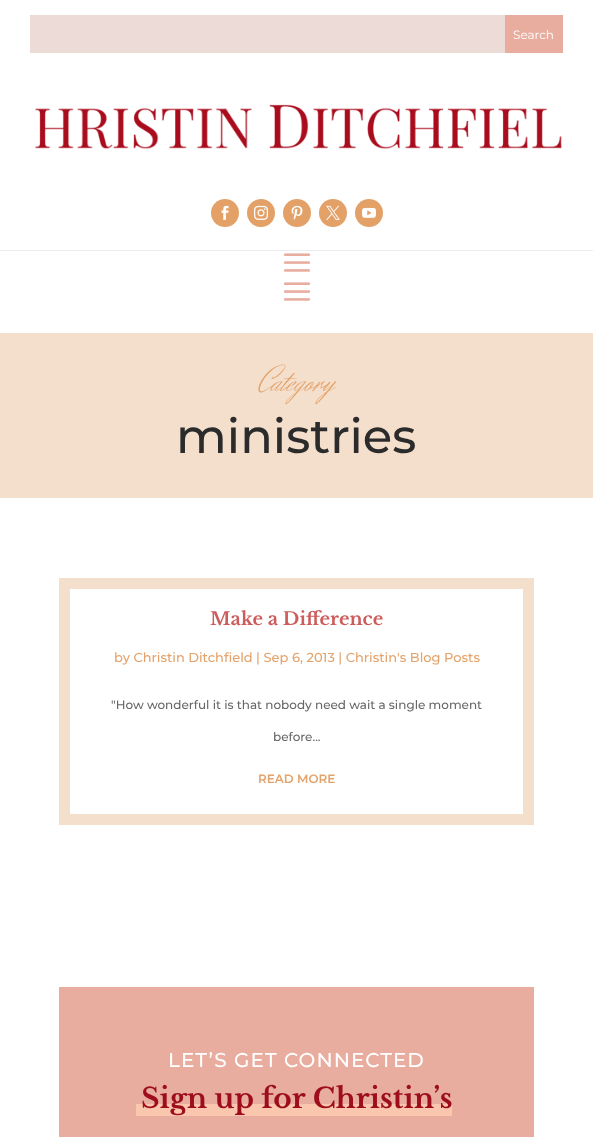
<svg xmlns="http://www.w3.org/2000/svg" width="593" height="1137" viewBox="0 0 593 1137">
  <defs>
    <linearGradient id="g1" gradientUnits="userSpaceOnUse" x1="294" y1="1081" x2="294" y2="1116"><stop offset="0" stop-color="#e8ad9e"/><stop offset="0.65" stop-color="#e8ad9e"/><stop offset="0.65" stop-color="#fbc6ae"/><stop offset="1" stop-color="#fbc6ae"/></linearGradient>
  </defs>
  <rect width="100%" height="100%" fill="#fff"/>
  <path d="M0 250h593v1H0z" fill="#ededed"/>
  <path d="M30 15h475v38H30z" fill="#eddbd8"/>
  <path d="M505 15h58v38H505z" fill="#e8ad9e"/>
  <image x="35" y="104" width="527" height="45" href="img/1.png"/>
  <circle cx="225" cy="213" r="14" fill="#e3a168"/>
  <image x="221" y="205" width="8" height="15" href="img/2.png"/>
  <circle cx="261" cy="213" r="14" fill="#e3a168"/>
  <image x="254" y="205" width="14" height="15" href="img/3.png"/>
  <circle cx="297" cy="213" r="14" fill="#e3a168"/>
  <image x="291" y="205" width="12" height="15" href="img/4.png"/>
  <circle cx="333" cy="213" r="14" fill="#e3a168"/>
  <image x="326" y="205" width="14" height="15" href="img/5.png"/>
  <circle cx="369" cy="213" r="14" fill="#e3a168"/>
  <image x="362" y="207" width="14" height="11" href="img/6.png"/>
  <image x="283" y="253" width="28" height="19" href="img/7.png"/>
  <image x="283" y="282" width="28" height="19" href="img/7.png"/>
  <path d="M0 333h593v165H0z" fill="#f4dfcd"/>
  <path d="M64.5 583.5h464v236H64.5z" fill="none" stroke="#f4dfcd" stroke-width="11"/>
  <path d="M59 987h475v150H59z" fill="#e8ad9e"/>
  <path d="M136 1104h316v12H136z" fill="url(#g1)"/>
  <text x="513" y="39" font-family="Montserrat" font-size="12" fill="#fff">Search</text>
  <text x="259" y="391" font-family="Herr Von Muellerhoff" font-size="36" fill="#e4a36b">Category</text>
  <text x="176" y="453" font-family="Montserrat" font-size="48" font-weight="500" fill="#2b2b2b">ministries</text>
  <text x="210" y="625" font-family="Libre Baskerville" font-size="18" font-weight="bold" fill="#cd5c5c">Make a Difference</text>
  <text x="114" y="662" font-family="Montserrat" font-size="13" font-weight="500" fill="#e4a36b">by Christin Ditchfield | Sep 6, 2013 | Christin's Blog Posts</text>
  <g font-family="Montserrat" font-size="12" font-weight="500" fill="#666">
    <text x="111" y="709">"How wonderful it is that nobody need wait a single moment</text>
    <text x="273" y="741">before...</text>
  </g>
  <text x="258" y="783" font-family="Montserrat" font-size="12" font-weight="600" fill="#e4a36b">READ MORE</text>
  <text x="168" y="1067" font-family="Montserrat" font-size="20" font-weight="500" letter-spacing="1" fill="#fff">LET’S GET CONNECTED</text>
  <text x="141" y="1108" font-family="Libre Baskerville" font-size="28" font-weight="bold" fill="#9d0d1d">Sign up for Christin’s</text>
</svg>
